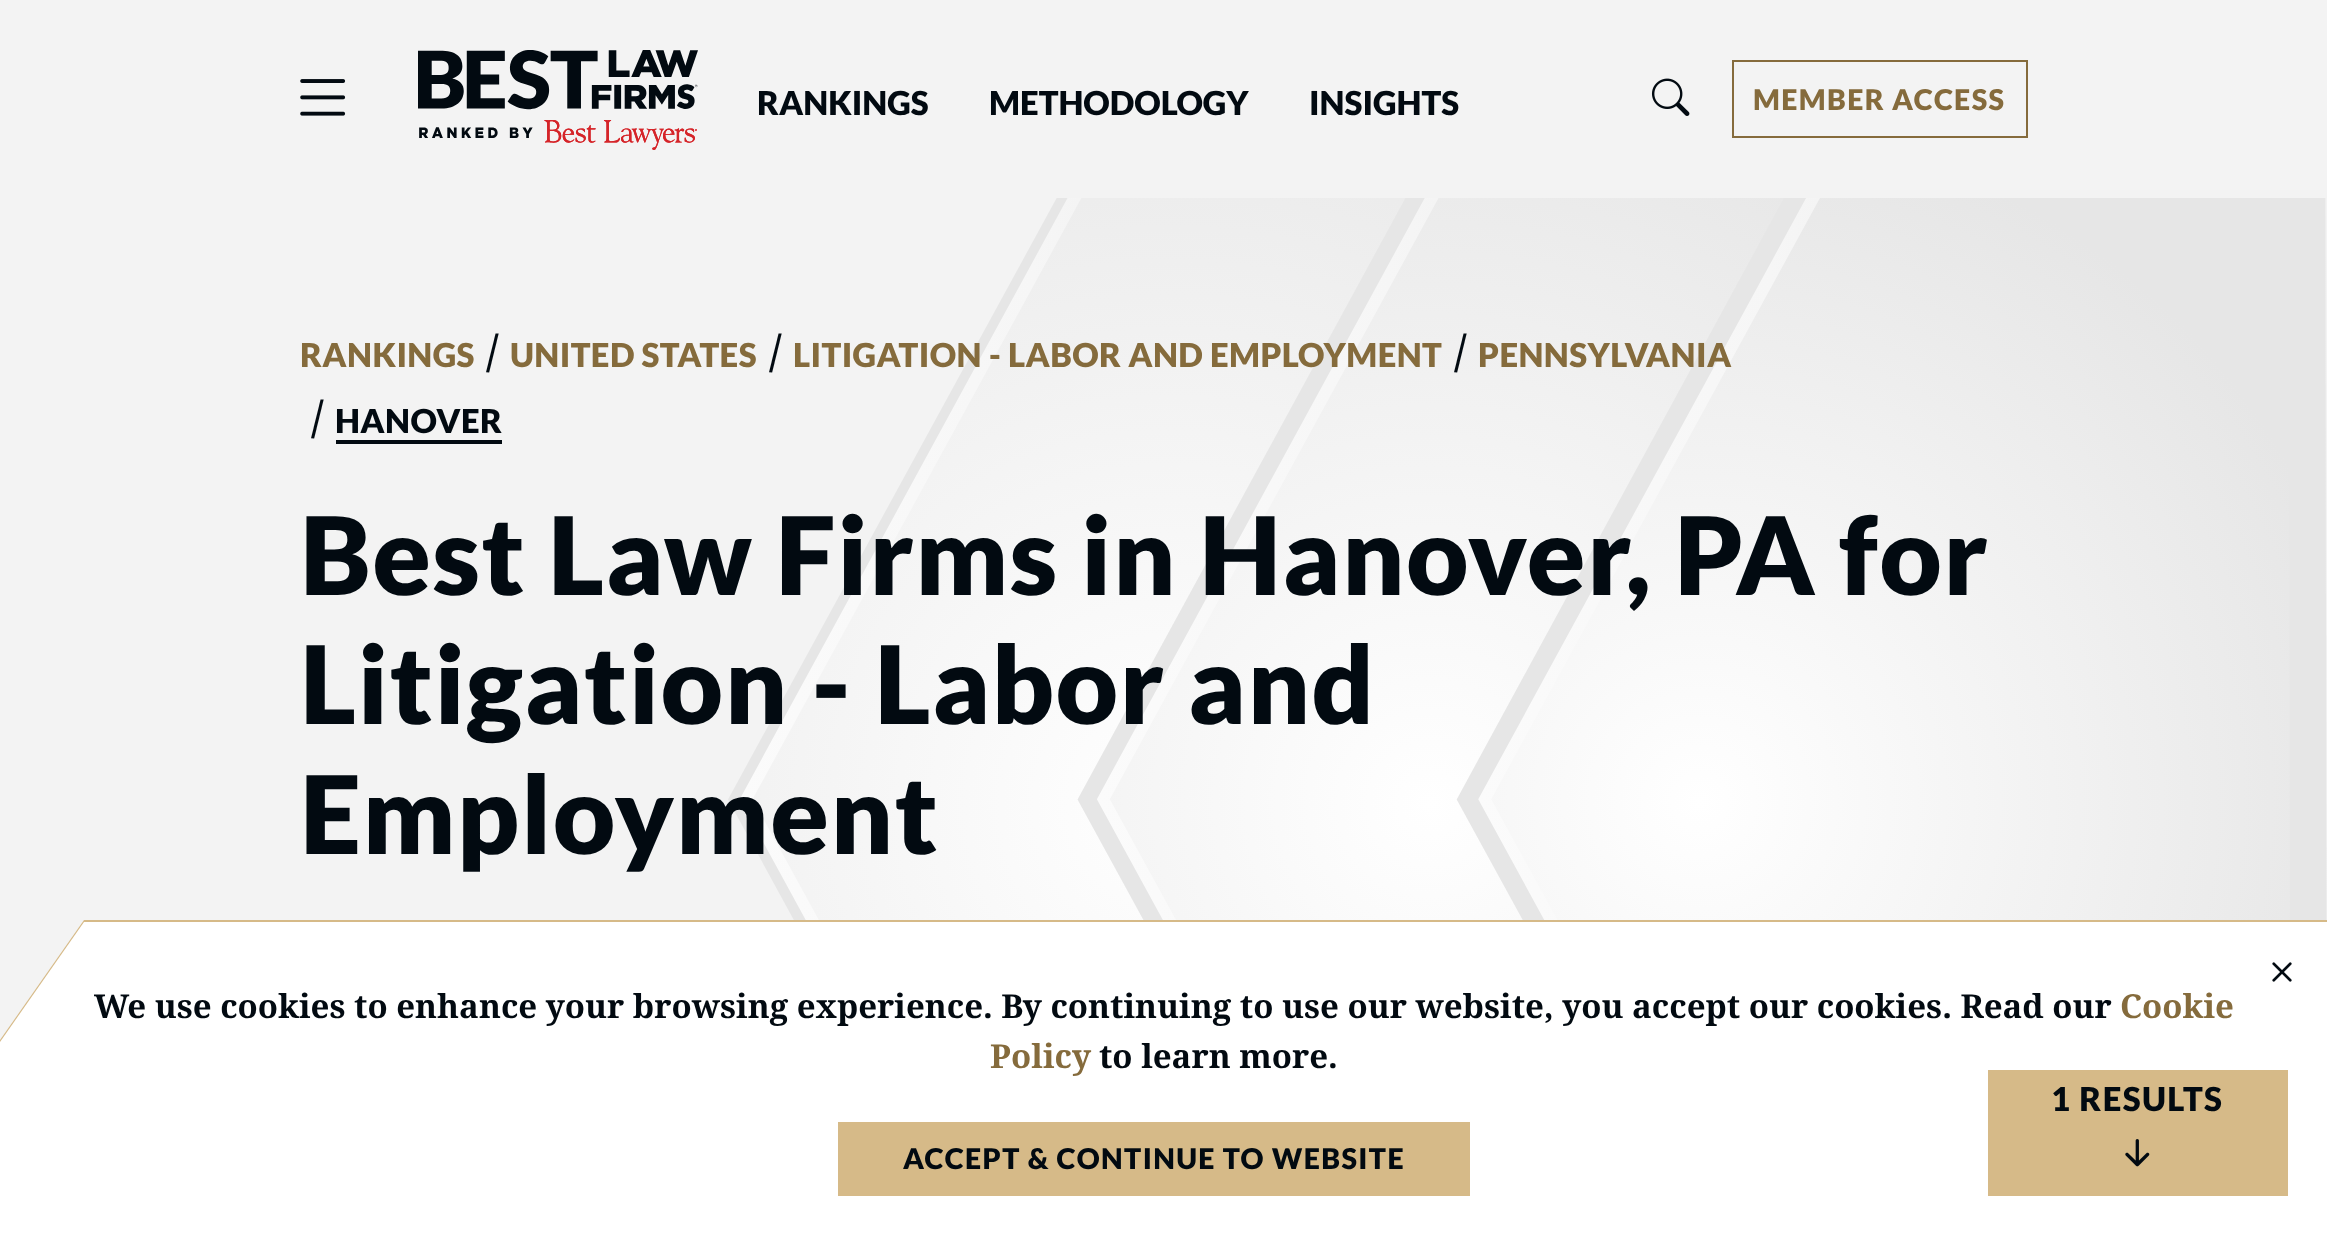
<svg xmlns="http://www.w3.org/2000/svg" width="2327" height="1235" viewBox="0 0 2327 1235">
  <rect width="100%" height="100%" fill="#f3f3f3"/>
  <image x="300" y="79" width="46" height="37" href="img/1.png"/>
  <image x="418" y="50" width="280" height="100" href="img/2.png"/>
  <image x="1651" y="78" width="39" height="38" href="img/3.png"/>
  <path d="M1733 61h294v76H1733z" fill="none" stroke="#856b3c" stroke-width="2"/>
  <image x="728" y="198" width="1599" height="722" href="img/4.png"/>
  <path d="M336 440h166v4H336z" fill="#020a11"/>
  <path d="M0 1040V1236H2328V920H84Z" fill="#d6ba88"/>
  <path d="M0 1042V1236H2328V922H84Z" fill="#fff"/>
  <path d="M1988 1070h300v126H1988z" fill="#d6ba88"/>
  <image x="2125" y="1139" width="25" height="28" href="img/5.png"/>
  <image x="2272" y="962" width="20" height="20" href="img/6.png"/>
  <path d="M838 1122h632v74H838z" fill="#d6ba88"/>
  <g font-family="Lato" font-size="33" font-weight="900" fill="#020a11">
    <text x="757" y="115">RANKINGS</text>
    <text x="989" y="115">METHODOLOGY</text>
    <text x="1309" y="115">INSIGHTS</text>
  </g>
  <text x="1753" y="110" font-family="Lato" font-size="28.6" font-weight="900" letter-spacing="1.4" fill="#856b3c">MEMBER ACCESS</text>
  <text x="300" y="367" font-family="Lato" font-size="33" font-weight="900" letter-spacing="0.4" fill="#856b3c">RANKINGS</text>
  <text x="486" y="367" font-family="Noto Serif" font-size="44" font-weight="bold" fill="#020a11">/</text>
  <text x="510" y="367" font-family="Lato" font-size="33" font-weight="900" letter-spacing="0.4" fill="#856b3c">UNITED STATES</text>
  <text x="769" y="367" font-family="Noto Serif" font-size="44" font-weight="bold" fill="#020a11">/</text>
  <text x="793" y="367" font-family="Lato" font-size="33" font-weight="900" letter-spacing="0.4" fill="#856b3c">LITIGATION - LABOR AND EMPLOYMENT</text>
  <text x="1454" y="367" font-family="Noto Serif" font-size="44" font-weight="bold" fill="#020a11">/</text>
  <text x="1478" y="367" font-family="Lato" font-size="33" font-weight="900" letter-spacing="0.4" fill="#856b3c">PENNSYLVANIA</text>
  <text x="311" y="433" font-family="Noto Serif" font-size="44" font-weight="bold" fill="#020a11">/</text>
  <text x="335" y="433" font-family="Lato" font-size="33" font-weight="900" letter-spacing="0.4" fill="#020a11">HANOVER</text>
  <g font-family="Lato" font-size="108.1" font-weight="900" letter-spacing="1.35" fill="#020a11">
    <text x="300" y="595">Best Law Firms in Hanover, PA for</text>
    <text x="300" y="724">Litigation - Labor and</text>
    <text x="300" y="854">Employment</text>
  </g>
  <text x="2051" y="1111" font-family="Lato" font-size="33" font-weight="900" letter-spacing="1.4" fill="#020a11">1 RESULTS</text>
  <text x="94" y="1018" font-family="Noto Serif" font-size="33" font-weight="bold" fill="#020a11">We use cookies to enhance your browsing experience. By continuing to use our website, you accept our cookies. Read our</text>
  <g font-family="Noto Serif" font-size="33" font-weight="bold" fill="#856b3c">
    <text x="2120" y="1018">Cookie</text>
    <text x="990" y="1068">Policy</text>
  </g>
  <text x="1099" y="1068" font-family="Noto Serif" font-size="33" font-weight="bold" fill="#020a11">to learn more.</text>
  <text x="903" y="1169" font-family="Lato" font-size="28.6" font-weight="900" letter-spacing="1.4" fill="#020a11">ACCEPT &amp; CONTINUE TO WEBSITE</text>
</svg>
